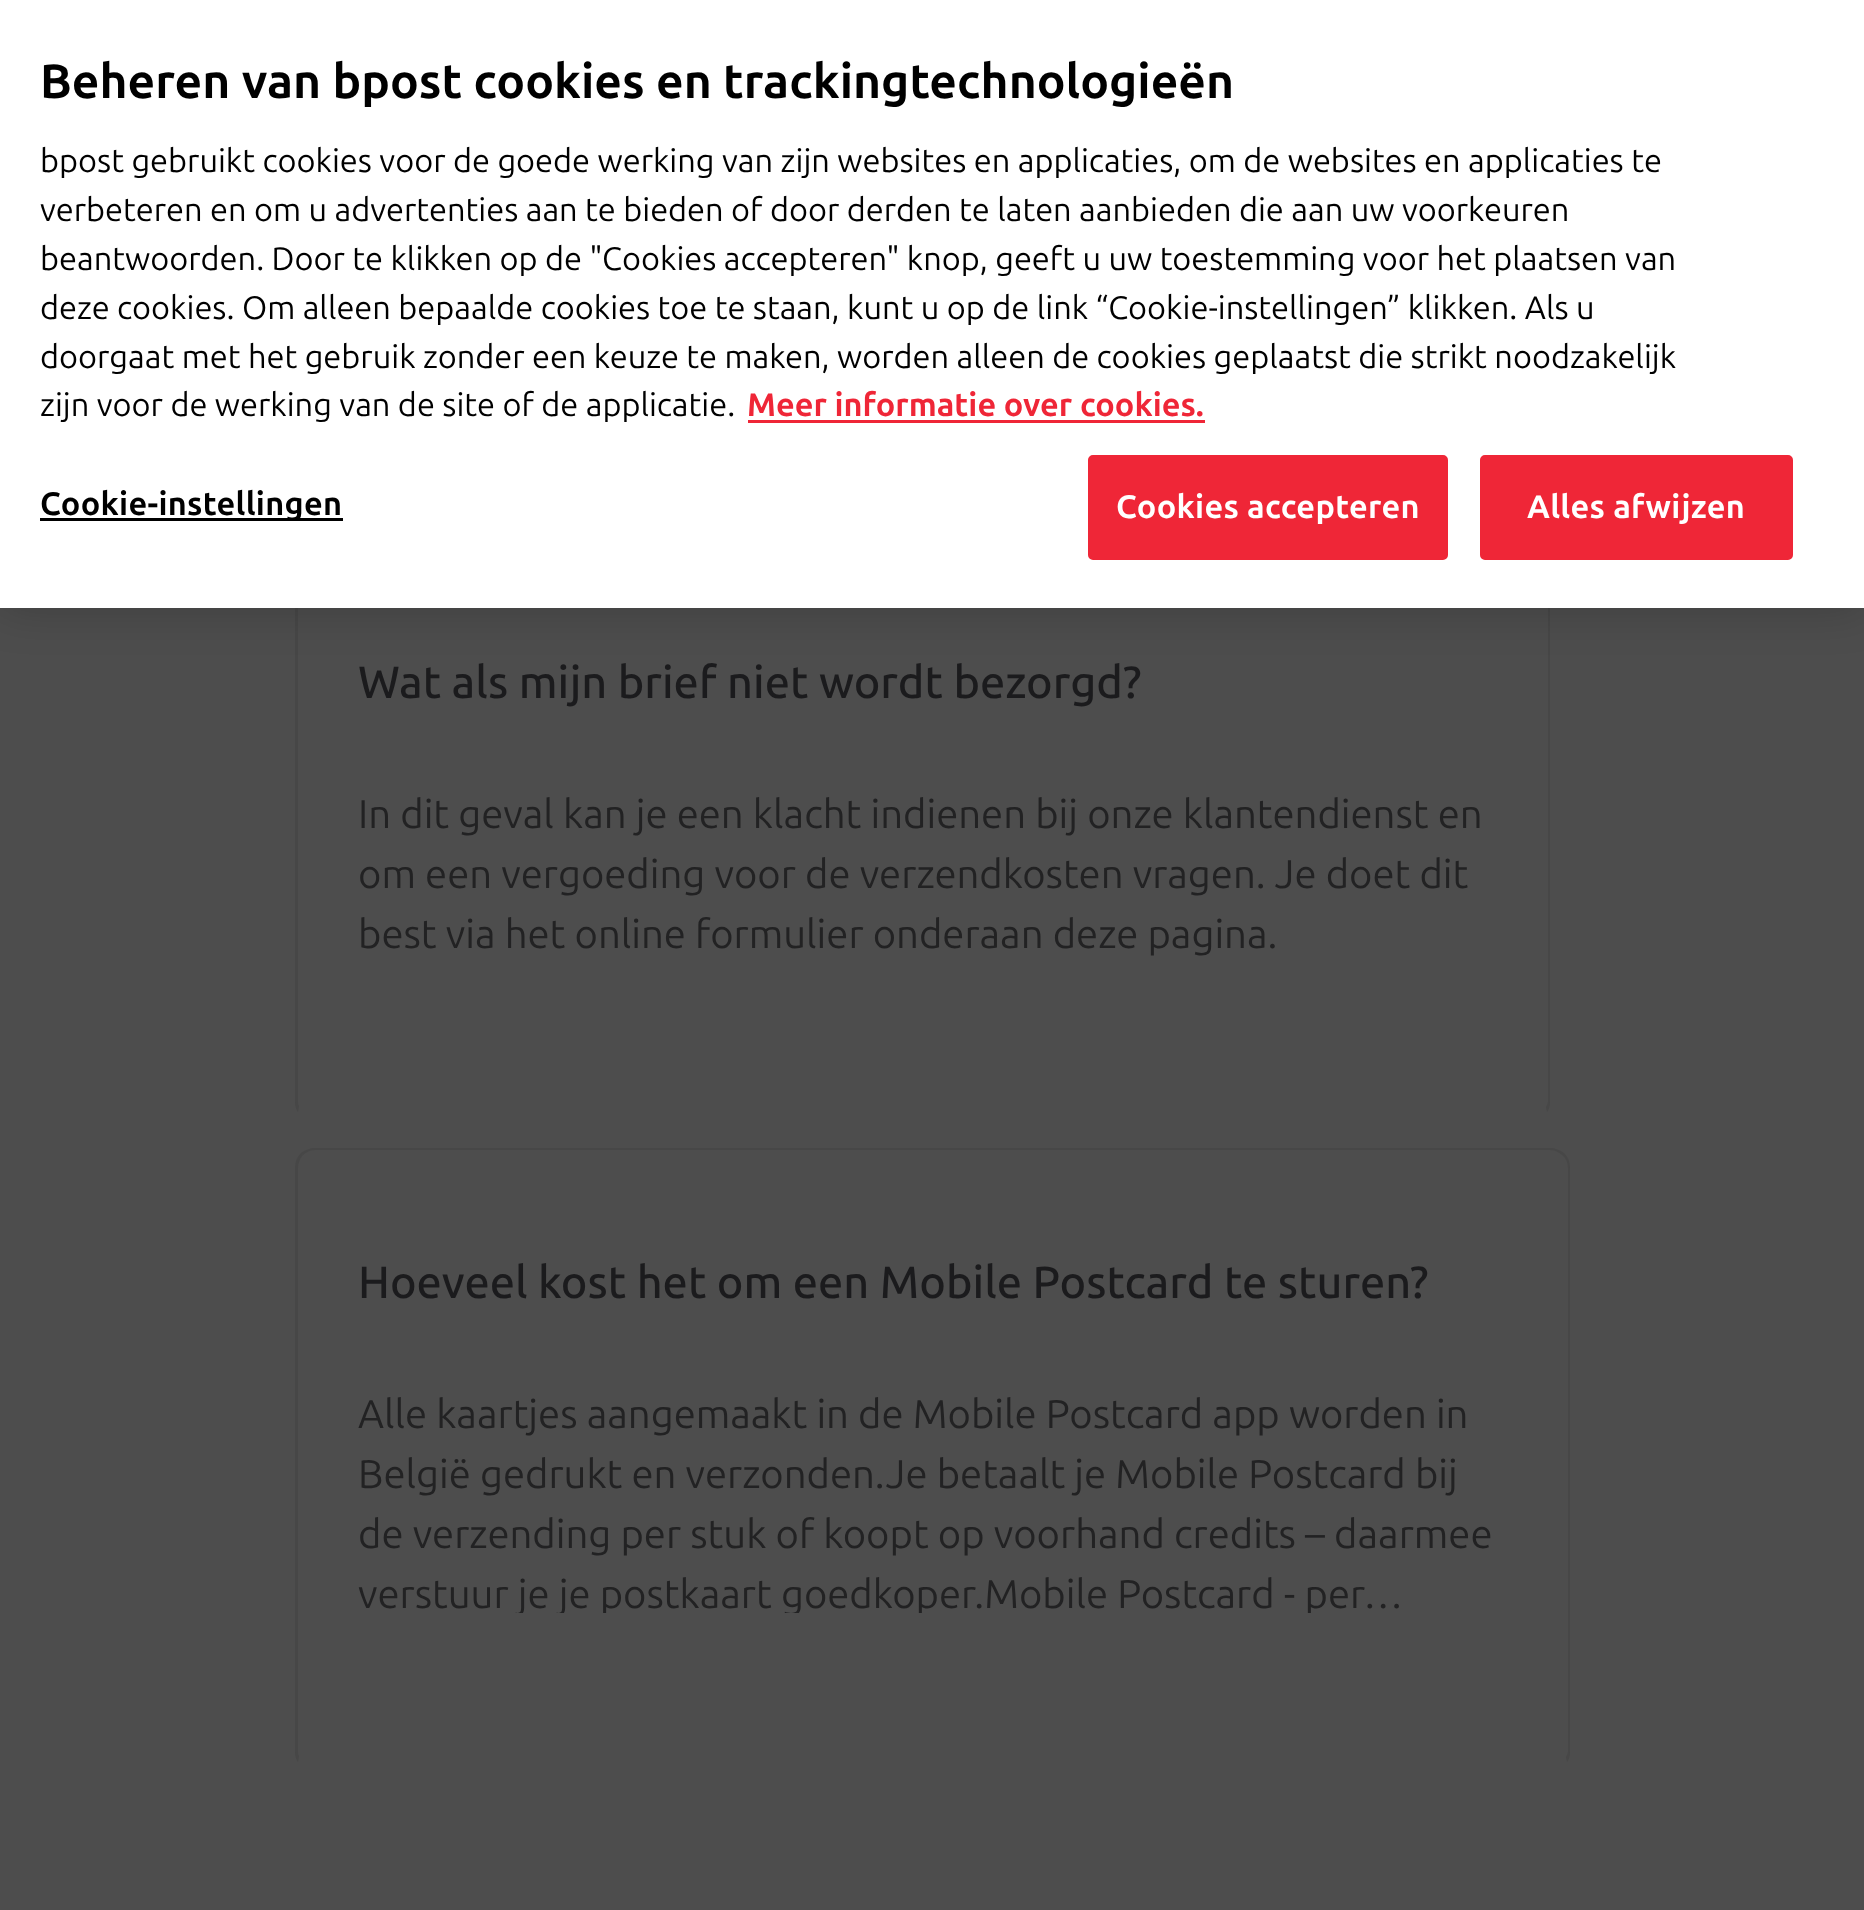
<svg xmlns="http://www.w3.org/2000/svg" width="1864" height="1910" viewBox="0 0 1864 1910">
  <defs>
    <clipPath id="clip1"><path d="M358 1383h1150v230H358z"/></clipPath>
  </defs>
  <rect width="100%" height="100%" fill="#4d4d4d"/>
  <path d="M1544 553C1548 557 1550 562 1550 568V1102C1550 1106 1549 1109 1547 1112L1546 1107C1547 1105 1548 1104 1548 1102V568C1548 563 1546 558 1542 555Z" fill="#474747"/>
  <path d="M295 568V1102C295 1106 296 1109 298 1112L299 1106C298 1105 298 1103 298 1102V568C298 563 300 558 303 555L301 553C297 557 295 562 295 568Z" fill="#474747"/>
  <path d="M0 0h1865v608H0z" fill="#00000033" filter="blur(22.5px)"/>
  <path d="M0 0h1864v608H0z" fill="#fff"/>
  <path d="M748 420h457v3H748z" fill="#ef2637"/>
  <path d="M40 518h303v3H40z" fill="#000"/>
  <rect x="1089.5" y="456.5" width="357" height="102" rx="3.5" fill="#ef2637" stroke="#ef2637" stroke-width="3"/>
  <rect x="1481.5" y="456.5" width="310" height="102" rx="3.5" fill="#ef2637" stroke="#ef2637" stroke-width="3"/>
  <path d="M315 1148C310 1148 305 1150 301 1153L303 1155C306 1152 310 1150 315 1150H1550C1555 1150 1559 1152 1562 1155L1564 1153C1560 1150 1555 1148 1550 1148Z" fill="#474747"/>
  <path d="M1564 1153C1568 1157 1570 1162 1570 1168V1752C1570 1756 1569 1759 1567 1762L1566 1757C1567 1755 1568 1754 1568 1752V1168C1568 1163 1566 1158 1562 1155Z" fill="#474747"/>
  <path d="M295 1168V1752C295 1756 296 1759 298 1762L299 1756C298 1755 298 1753 298 1752V1168C298 1163 300 1158 303 1155L301 1153C297 1157 295 1162 295 1168Z" fill="#474747"/>
  <text x="40" y="98" font-family="Ubuntu" font-size="48" font-weight="bold" fill="#000">Beheren van bpost cookies en trackingtechnologieën</text>
  <g font-family="Ubuntu" font-size="32.52" fill="#000">
    <text x="40" y="172">bpost gebruikt cookies voor de goede werking van zijn websites en applicaties, om de websites en applicaties te</text>
    <text x="40" y="221">verbeteren en om u advertenties aan te bieden of door derden te laten aanbieden die aan uw voorkeuren</text>
    <text x="40" y="270">beantwoorden. Door te klikken op de "Cookies accepteren" knop, geeft u uw toestemming voor het plaatsen van</text>
    <text x="40" y="319">deze cookies. Om alleen bepaalde cookies toe te staan, kunt u op de link “Cookie-instellingen” klikken. Als u</text>
    <text x="40" y="368">doorgaat met het gebruik zonder een keuze te maken, worden alleen de cookies geplaatst die strikt noodzakelijk</text>
    <text x="40" y="416">zijn voor de werking van de site of de applicatie.</text>
  </g>
  <text x="747" y="416" font-family="Ubuntu" font-size="32.52" font-weight="bold" fill="#ef2637">Meer informatie over cookies.</text>
  <text x="40" y="515" font-family="Ubuntu" font-size="32.52" font-weight="bold" letter-spacing="0.3" fill="#000">Cookie-instellingen</text>
  <g font-family="Ubuntu" font-size="32.52" font-weight="bold" letter-spacing="0.3" fill="#fff">
    <text x="1116" y="518">Cookies accepteren</text>
    <text x="1527" y="518">Alles afwijzen</text>
  </g>
  <text x="358" y="698" font-family="Ubuntu" font-size="45" font-weight="500" fill="#1b1b1d">Wat als mijn brief niet wordt bezorgd?</text>
  <g font-family="Ubuntu" font-size="40" fill="#222223">
    <text x="358" y="828">In dit geval kan je een klacht indienen bij onze klantendienst en</text>
    <text x="358" y="888">om een vergoeding voor de verzendkosten vragen. Je doet dit</text>
    <text x="358" y="948">best via het online formulier onderaan deze pagina.</text>
  </g>
  <text x="358" y="1298" font-family="Ubuntu" font-size="45" font-weight="500" fill="#1b1b1d">Hoeveel kost het om een Mobile Postcard te sturen?</text>
  <g font-family="Ubuntu" font-size="40" fill="#222223">
    <text x="358" y="1428">Alle kaartjes aangemaakt in de Mobile Postcard app worden in</text>
    <text x="358" y="1488">België gedrukt en verzonden.Je betaalt je Mobile Postcard bij</text>
    <text x="358" y="1548">de verzending per stuk of koopt op voorhand credits – daarmee</text>
  </g>
  <g clip-path="url(#clip1)">
    <text x="358" y="1608" font-family="Ubuntu" font-size="40" fill="#222223">verstuur je je postkaart goedkoper.Mobile Postcard - per…</text>
  </g>
</svg>
